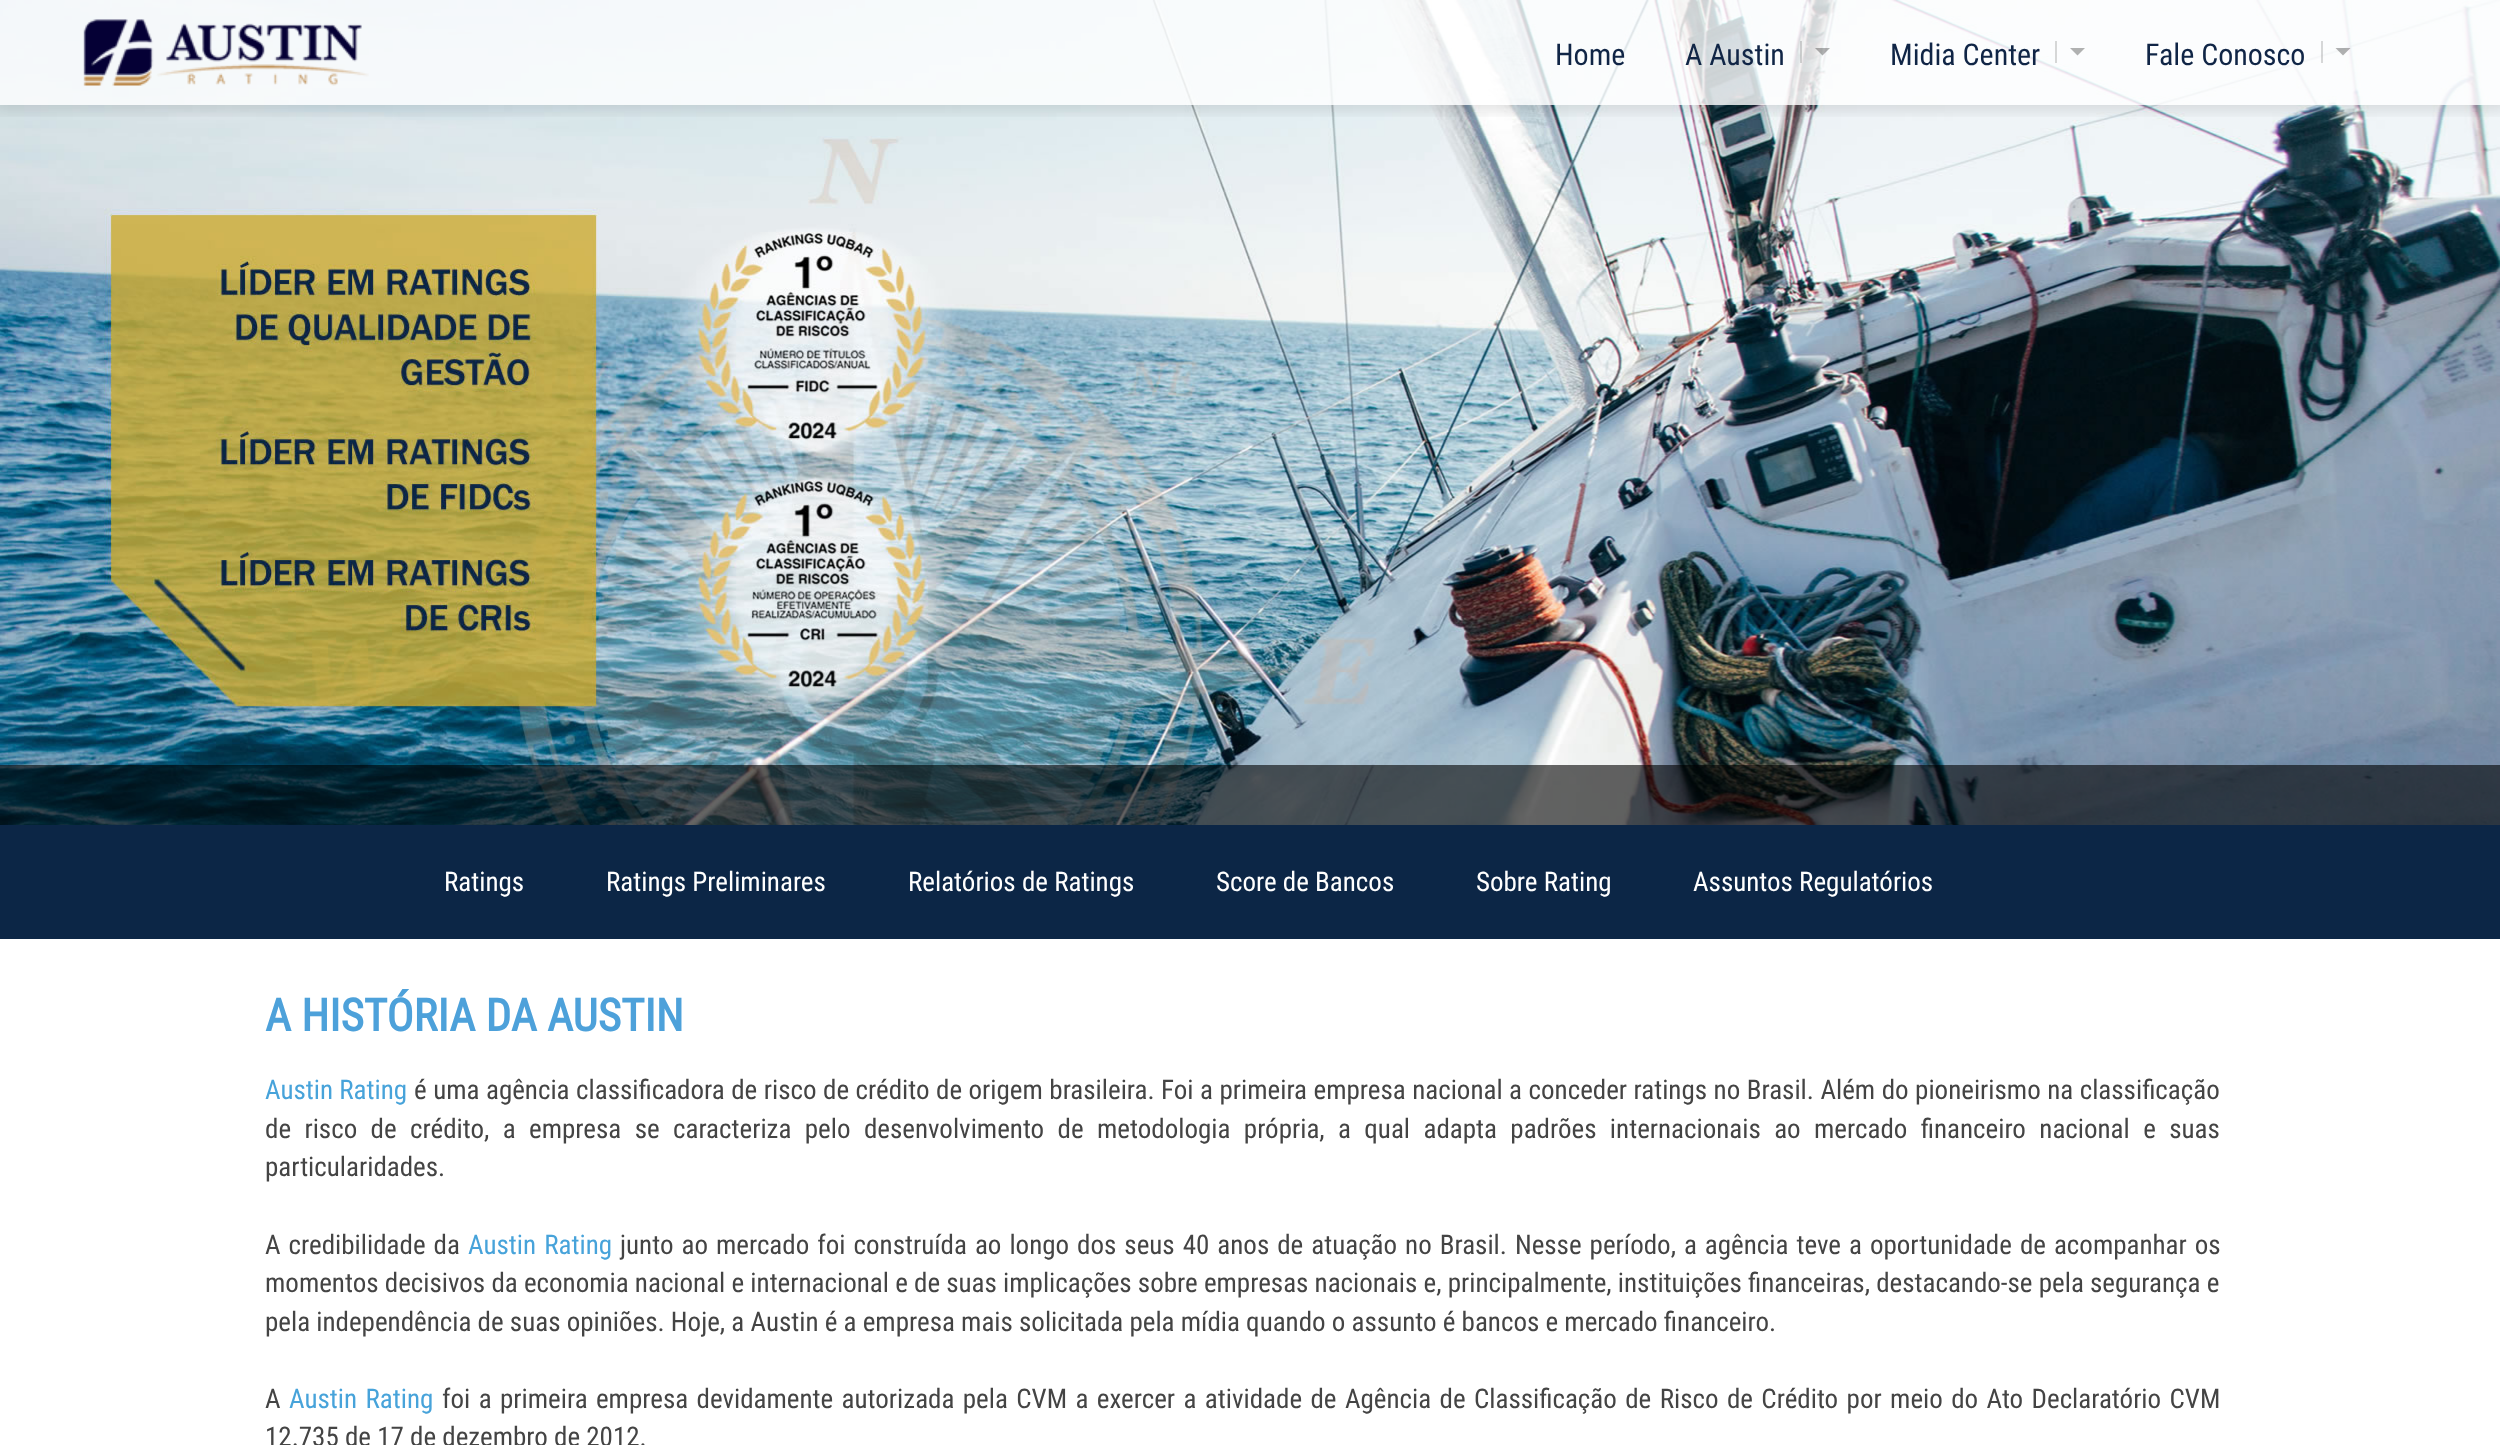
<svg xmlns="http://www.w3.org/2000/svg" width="2500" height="1445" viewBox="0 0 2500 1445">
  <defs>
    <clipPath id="clip1"><path d="M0 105h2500v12H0z"/></clipPath>
  </defs>
  <rect width="100%" height="100%" fill="#fff"/>
  <image x="0" y="0" width="2500" height="825" href="img/1.png"/>
  <path d="M0 765h2500v60H0z" fill="#00000099"/>
  <g clip-path="url(#clip1)">
    <path d="M-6 -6h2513v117H-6z" fill="#0000001a" filter="blur(7px)"/>
  </g>
  <path d="M0 0h2500v105H0z" fill="#ffffffcc"/>
  <image x="83" y="19" width="286" height="67" href="img/2.png"/>
  <path d="M1815 48H1830L1822.5 55.5Z" fill="#0000004d"/>
  <path d="M1800 41h2v22H1800z" fill="#00000026"/>
  <path d="M2070 48H2085L2077.5 55.5Z" fill="#b0b1b1"/>
  <path d="M2055 41h2v22H2055z" fill="#d6d7d7"/>
  <path d="M2335.5 48H2350.5L2343 55.5Z" fill="#0000004d"/>
  <path d="M2321 41h2v22H2321z" fill="#00000026"/>
  <path d="M0 825h2500v114H0z" fill="#0c2646"/>
  <g font-family="Roboto Condensed" font-size="30" fill="#102546">
    <text x="1555" y="65">Home</text>
    <text x="1685" y="65">A Austin</text>
    <text x="1890" y="65">Midia Center</text>
    <text x="2145" y="65">Fale Conosco</text>
  </g>
  <g font-family="Roboto Condensed" font-size="27" fill="#fff">
    <text x="444" y="891">Ratings</text>
    <text x="606" y="891">Ratings Preliminares</text>
    <text x="908" y="891">Relatórios de Ratings</text>
    <text x="1216" y="891">Score de Bancos</text>
    <text x="1476" y="891">Sobre Rating</text>
    <text x="1693" y="891">Assuntos Regulatórios</text>
  </g>
  <text x="265" y="1031" font-family="Roboto Condensed" font-size="45" font-weight="bold" fill="#4da1da">A HISTÓRIA DA AUSTIN</text>
  <text x="265" y="1099" font-family="Roboto Condensed" font-size="27" fill="#47a3da">Austin Rating</text>
  <g font-family="Roboto Condensed" font-size="27" fill="#444">
    <text x="414" y="1099" word-spacing="0.3">é uma agência classificadora de risco de crédito de origem brasileira. Foi a primeira empresa nacional a conceder ratings no Brasil. Além do pioneirismo na classificação</text>
    <text x="265" y="1138" word-spacing="7.2">de risco de crédito, a empresa se caracteriza pelo desenvolvimento de metodologia própria, a qual adapta padrões internacionais ao mercado financeiro nacional e suas</text>
    <text x="265" y="1176">particularidades.</text>
    <text x="265" y="1254" word-spacing="1.8">A credibilidade da</text>
  </g>
  <text x="468" y="1254" word-spacing="2" font-family="Roboto Condensed" font-size="27" fill="#47a3da">Austin Rating</text>
  <g font-family="Roboto Condensed" font-size="27" fill="#444">
    <text x="620" y="1254" word-spacing="1.8">junto ao mercado foi construída ao longo dos seus 40 anos de atuação no Brasil. Nesse período, a agência teve a oportunidade de acompanhar os</text>
    <text x="265" y="1292">momentos decisivos da economia nacional e internacional e de suas implicações sobre empresas nacionais e, principalmente, instituições financeiras, destacando-se pela segurança e</text>
    <text x="265" y="1331">pela independência de suas opiniões. Hoje, a Austin é a empresa mais solicitada pela mídia quando o assunto é bancos e mercado financeiro.</text>
    <text x="265" y="1408">A</text>
  </g>
  <text x="289" y="1408" word-spacing="2.2" font-family="Roboto Condensed" font-size="27" fill="#47a3da">Austin Rating</text>
  <g font-family="Roboto Condensed" font-size="27" fill="#444">
    <text x="442" y="1408" word-spacing="2.2">foi a primeira empresa devidamente autorizada pela CVM a exercer a atividade de Agência de Classificação de Risco de Crédito por meio do Ato Declaratório CVM</text>
    <text x="265" y="1446">12.735 de 17 de dezembro de 2012.</text>
  </g>
</svg>
